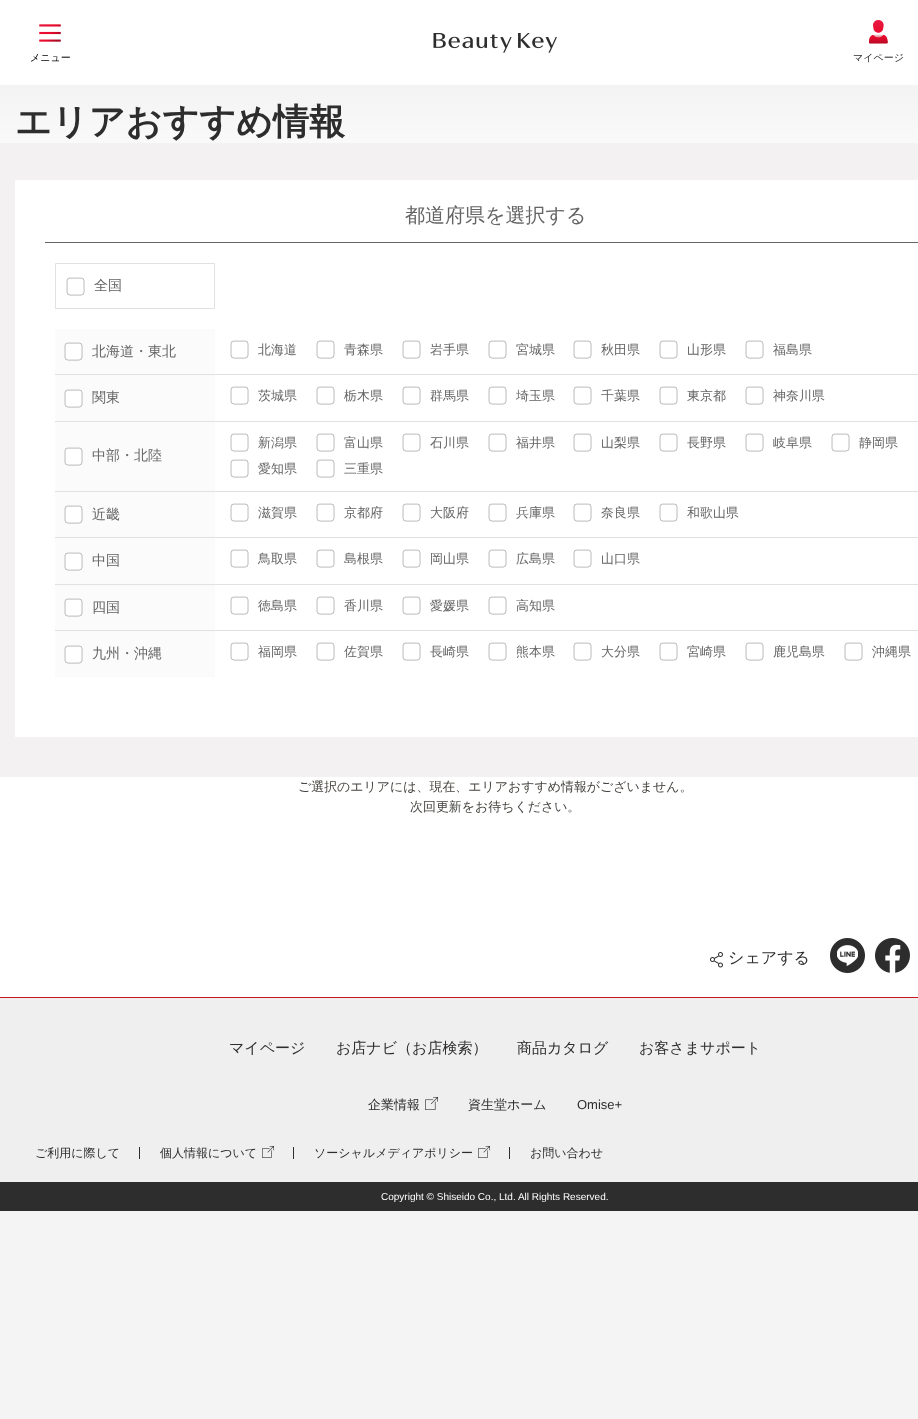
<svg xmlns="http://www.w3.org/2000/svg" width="918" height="1419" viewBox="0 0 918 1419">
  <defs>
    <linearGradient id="g1" gradientUnits="userSpaceOnUse" x1="495" y1="85" x2="495" y2="818"><stop offset="0" stop-color="#f3f3f3"/><stop offset="0.15" stop-color="#fff"/><stop offset="1" stop-color="#fff"/></linearGradient>
  </defs>
  <rect width="100%" height="100%" fill="#f4f4f5"/>
  <path d="M0 0h918v997H0z" fill="#fff"/>
  <image x="433" y="33" width="124" height="20" href="img/1.png"/>
  <image x="39" y="24" width="22" height="18" href="img/2.png"/>
  <image x="869" y="20" width="19" height="24" href="img/3.png"/>
  <path d="M0 85h918v87H0z" fill="url(#g1)"/>
  <path d="M0 143h918v634H0z" fill="#f3f1f1"/>
  <path d="M15 180h903v557H15z" fill="#fff"/>
  <path d="M45 242h873v1H45z" fill="#646464"/>
  <path d="M55.5 263.5h159v45H55.5z" fill="none" stroke="#e1e1e1"/>
  <image x="66" y="277" width="19" height="19" href="img/4.png"/>
  <path d="M55 329h160v45H55z" fill="#fcfbfb"/>
  <image x="64" y="342" width="19" height="19" href="img/5.png"/>
  <image x="230" y="340" width="19" height="19" href="img/4.png"/>
  <image x="316" y="340" width="19" height="19" href="img/4.png"/>
  <image x="402" y="340" width="19" height="19" href="img/4.png"/>
  <image x="488" y="340" width="19" height="19" href="img/4.png"/>
  <image x="573" y="340" width="19" height="19" href="img/4.png"/>
  <image x="659" y="340" width="19" height="19" href="img/4.png"/>
  <image x="745" y="340" width="19" height="19" href="img/4.png"/>
  <path d="M55 374h863v1H55z" fill="#e1e1e1"/>
  <path d="M55 375h160v46H55z" fill="#fcfbfb"/>
  <image x="64" y="389" width="19" height="19" href="img/5.png"/>
  <image x="230" y="386" width="19" height="19" href="img/4.png"/>
  <image x="316" y="386" width="19" height="19" href="img/4.png"/>
  <image x="402" y="386" width="19" height="19" href="img/4.png"/>
  <image x="488" y="386" width="19" height="19" href="img/4.png"/>
  <image x="573" y="386" width="19" height="19" href="img/4.png"/>
  <image x="659" y="386" width="19" height="19" href="img/4.png"/>
  <image x="745" y="386" width="19" height="19" href="img/4.png"/>
  <path d="M55 421h863v1H55z" fill="#e1e1e1"/>
  <path d="M55 422h160v69H55z" fill="#fcfbfb"/>
  <image x="64" y="447" width="19" height="19" href="img/5.png"/>
  <image x="230" y="433" width="19" height="19" href="img/4.png"/>
  <image x="316" y="433" width="19" height="19" href="img/4.png"/>
  <image x="402" y="433" width="19" height="19" href="img/4.png"/>
  <image x="488" y="433" width="19" height="19" href="img/4.png"/>
  <image x="573" y="433" width="19" height="19" href="img/4.png"/>
  <image x="659" y="433" width="19" height="19" href="img/4.png"/>
  <image x="745" y="433" width="19" height="19" href="img/4.png"/>
  <image x="831" y="433" width="19" height="19" href="img/4.png"/>
  <image x="230" y="459" width="19" height="19" href="img/4.png"/>
  <image x="316" y="459" width="19" height="19" href="img/4.png"/>
  <path d="M55 491h863v1H55z" fill="#e1e1e1"/>
  <path d="M55 492h160v45H55z" fill="#fcfbfb"/>
  <image x="64" y="505" width="19" height="19" href="img/5.png"/>
  <image x="230" y="503" width="19" height="19" href="img/4.png"/>
  <image x="316" y="503" width="19" height="19" href="img/4.png"/>
  <image x="402" y="503" width="19" height="19" href="img/4.png"/>
  <image x="488" y="503" width="19" height="19" href="img/4.png"/>
  <image x="573" y="503" width="19" height="19" href="img/4.png"/>
  <image x="659" y="503" width="19" height="19" href="img/4.png"/>
  <path d="M55 537h863v1H55z" fill="#e1e1e1"/>
  <path d="M55 538h160v46H55z" fill="#fcfbfb"/>
  <image x="64" y="552" width="19" height="19" href="img/5.png"/>
  <image x="230" y="549" width="19" height="19" href="img/4.png"/>
  <image x="316" y="549" width="19" height="19" href="img/4.png"/>
  <image x="402" y="549" width="19" height="19" href="img/4.png"/>
  <image x="488" y="549" width="19" height="19" href="img/4.png"/>
  <image x="573" y="549" width="19" height="19" href="img/4.png"/>
  <path d="M55 584h863v1H55z" fill="#e1e1e1"/>
  <path d="M55 585h160v45H55z" fill="#fcfbfb"/>
  <image x="64" y="598" width="19" height="19" href="img/5.png"/>
  <image x="230" y="596" width="19" height="19" href="img/4.png"/>
  <image x="316" y="596" width="19" height="19" href="img/4.png"/>
  <image x="402" y="596" width="19" height="19" href="img/4.png"/>
  <image x="488" y="596" width="19" height="19" href="img/4.png"/>
  <path d="M55 630h863v1H55z" fill="#e1e1e1"/>
  <path d="M55 631h160v46H55z" fill="#fcfbfb"/>
  <image x="64" y="645" width="19" height="19" href="img/5.png"/>
  <image x="230" y="642" width="19" height="19" href="img/4.png"/>
  <image x="316" y="642" width="19" height="19" href="img/4.png"/>
  <image x="402" y="642" width="19" height="19" href="img/4.png"/>
  <image x="488" y="642" width="19" height="19" href="img/4.png"/>
  <image x="573" y="642" width="19" height="19" href="img/4.png"/>
  <image x="659" y="642" width="19" height="19" href="img/4.png"/>
  <image x="745" y="642" width="19" height="19" href="img/4.png"/>
  <image x="844" y="642" width="19" height="19" href="img/4.png"/>
  <image x="710" y="952" width="13" height="16" href="img/6.png"/>
  <image x="830" y="938" width="35" height="35" href="img/7.png"/>
  <image x="875" y="938" width="35" height="35" href="img/8.png"/>
  <path d="M0 998h918v184H0z" fill="#efefef"/>
  <path d="M0 997h918v1H0z" fill="#c81622"/>
  <image x="425" y="1097" width="13" height="13" href="img/9.png"/>
  <path d="M139 1147h1v12H139z" fill="#2d2d2d"/>
  <image x="262" y="1146" width="12" height="12" href="img/10.png"/>
  <path d="M293 1147h1v12H293z" fill="#2d2d2d"/>
  <image x="478" y="1146" width="12" height="12" href="img/10.png"/>
  <path d="M509 1147h1v12H509z" fill="#2d2d2d"/>
  <path d="M0 1182h918v29H0z" fill="#2d2d2d"/>
  <text x="30" y="61" font-family="WenQuanYi Zen Hei" font-size="10" font-weight="500" fill="#000">メニュー</text>
  <text x="853" y="61" font-family="WenQuanYi Zen Hei" font-size="10" font-weight="500" fill="#2d2d2d">マイページ</text>
  <text x="15" y="134" font-family="WenQuanYi Zen Hei" font-size="36" font-weight="bold" fill="#2d2d2d">エリアおすすめ情報</text>
  <text x="405" y="222" font-family="WenQuanYi Zen Hei" font-size="20" font-weight="500" fill="#646464">都道府県を選択する</text>
  <g font-family="WenQuanYi Zen Hei" font-size="14" font-weight="500" fill="#646464">
    <text x="94" y="290">全国</text>
    <text x="92" y="356">北海道・東北</text>
  </g>
  <g font-family="WenQuanYi Zen Hei" font-size="12.95" font-weight="500" fill="#646464">
    <text x="258" y="354">北海道</text>
    <text x="344" y="354">青森県</text>
    <text x="430" y="354">岩手県</text>
    <text x="516" y="354">宮城県</text>
    <text x="601" y="354">秋田県</text>
    <text x="687" y="354">山形県</text>
    <text x="773" y="354">福島県</text>
  </g>
  <text x="92" y="402" font-family="WenQuanYi Zen Hei" font-size="14" font-weight="500" fill="#646464">関東</text>
  <g font-family="WenQuanYi Zen Hei" font-size="12.95" font-weight="500" fill="#646464">
    <text x="258" y="400">茨城県</text>
    <text x="344" y="400">栃木県</text>
    <text x="430" y="400">群馬県</text>
    <text x="516" y="400">埼玉県</text>
    <text x="601" y="400">千葉県</text>
    <text x="687" y="400">東京都</text>
    <text x="773" y="400">神奈川県</text>
  </g>
  <text x="92" y="460" font-family="WenQuanYi Zen Hei" font-size="14" font-weight="500" fill="#646464">中部・北陸</text>
  <g font-family="WenQuanYi Zen Hei" font-size="12.95" font-weight="500" fill="#646464">
    <text x="258" y="447">新潟県</text>
    <text x="344" y="447">富山県</text>
    <text x="430" y="447">石川県</text>
    <text x="516" y="447">福井県</text>
    <text x="601" y="447">山梨県</text>
    <text x="687" y="447">長野県</text>
    <text x="773" y="447">岐阜県</text>
    <text x="859" y="447">静岡県</text>
    <text x="258" y="473">愛知県</text>
    <text x="344" y="473">三重県</text>
  </g>
  <text x="92" y="519" font-family="WenQuanYi Zen Hei" font-size="14" font-weight="500" fill="#646464">近畿</text>
  <g font-family="WenQuanYi Zen Hei" font-size="12.95" font-weight="500" fill="#646464">
    <text x="258" y="517">滋賀県</text>
    <text x="344" y="517">京都府</text>
    <text x="430" y="517">大阪府</text>
    <text x="516" y="517">兵庫県</text>
    <text x="601" y="517">奈良県</text>
    <text x="687" y="517">和歌山県</text>
  </g>
  <text x="92" y="565" font-family="WenQuanYi Zen Hei" font-size="14" font-weight="500" fill="#646464">中国</text>
  <g font-family="WenQuanYi Zen Hei" font-size="12.95" font-weight="500" fill="#646464">
    <text x="258" y="563">鳥取県</text>
    <text x="344" y="563">島根県</text>
    <text x="430" y="563">岡山県</text>
    <text x="516" y="563">広島県</text>
    <text x="601" y="563">山口県</text>
  </g>
  <text x="92" y="612" font-family="WenQuanYi Zen Hei" font-size="14" font-weight="500" fill="#646464">四国</text>
  <g font-family="WenQuanYi Zen Hei" font-size="12.95" font-weight="500" fill="#646464">
    <text x="258" y="610">徳島県</text>
    <text x="344" y="610">香川県</text>
    <text x="430" y="610">愛媛県</text>
    <text x="516" y="610">高知県</text>
  </g>
  <text x="92" y="658" font-family="WenQuanYi Zen Hei" font-size="14" font-weight="500" fill="#646464">九州・沖縄</text>
  <g font-family="WenQuanYi Zen Hei" font-size="12.95" font-weight="500" fill="#646464">
    <text x="258" y="656">福岡県</text>
    <text x="344" y="656">佐賀県</text>
    <text x="430" y="656">長崎県</text>
    <text x="516" y="656">熊本県</text>
    <text x="601" y="656">大分県</text>
    <text x="687" y="656">宮崎県</text>
    <text x="773" y="656">鹿児島県</text>
    <text x="872" y="656">沖縄県</text>
  </g>
  <g font-family="WenQuanYi Zen Hei" font-size="12.95" font-weight="500" fill="#45433e">
    <text x="298" y="791">ご選択のエリアには、現在、エリアおすすめ情報がございません。</text>
    <text x="410" y="811">次回更新をお待ちください。</text>
  </g>
  <text x="728" y="963" font-family="WenQuanYi Zen Hei" font-size="16" font-weight="500" fill="#2d2d2d">シェアする</text>
  <g font-family="WenQuanYi Zen Hei" font-size="15" font-weight="500" fill="#2d2d2d">
    <text x="229" y="1053">マイページ</text>
    <text x="336" y="1053">お店ナビ（お店検索）</text>
    <text x="517" y="1053">商品カタログ</text>
    <text x="639" y="1053">お客さまサポート</text>
  </g>
  <g font-family="WenQuanYi Zen Hei" font-size="13" font-weight="500" fill="#2d2d2d">
    <text x="368" y="1109">企業情報</text>
    <text x="468" y="1109">資生堂ホーム</text>
  </g>
  <text x="577" y="1109" font-family="Liberation Sans" font-size="13" fill="#2d2d2d">Omise+</text>
  <g font-family="WenQuanYi Zen Hei" font-size="12" font-weight="500" fill="#2d2d2d">
    <text x="35" y="1157">ご利用に際して</text>
    <text x="160" y="1157">個人情報について</text>
    <text x="314" y="1157">ソーシャルメディアポリシー</text>
    <text x="530" y="1157">お問い合わせ</text>
  </g>
  <text x="381" y="1200" font-family="Liberation Sans" font-size="10" fill="#fff">Copyright © Shiseido Co., Ltd. All Rights Reserved.</text>
</svg>
